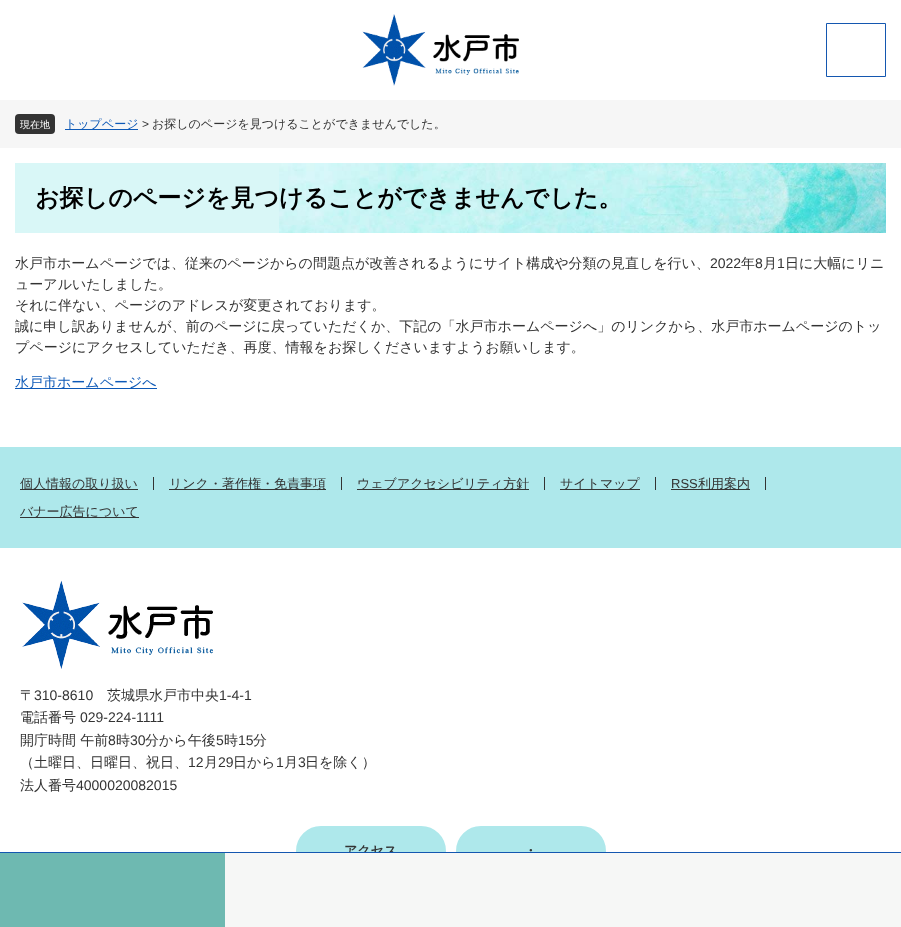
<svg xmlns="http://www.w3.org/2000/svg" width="901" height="927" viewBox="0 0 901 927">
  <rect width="100%" height="100%" fill="#fff"/>
  <image x="362" y="14" width="157" height="72" href="img/1.png"/>
  <path d="M826.5 23.5h59v53H826.5z" fill="none" stroke="#1457b0"/>
  <path d="M0 853h225v74H0z" fill="#6eb9b1"/>
  <path d="M0 100h901v48H0z" fill="#f6f6f6"/>
  <rect x="15" y="114" width="40" height="20" rx="4" fill="#333"/>
  <path d="M65 129h73v1H65z" fill="#0d59b7"/>
  <path d="M15 163h264v70H15z" fill="#d9f7f7"/>
  <image x="279" y="163" width="607" height="70" href="img/2.png"/>
  <path d="M15 388h142v1H15z" fill="#0d59b7"/>
  <path d="M0 447h901v101H0z" fill="#aee8eb"/>
  <path d="M153 477h1v13H153z" fill="#333"/>
  <path d="M20 489h118v1H20z" fill="#333"/>
  <path d="M341 477h1v13H341z" fill="#333"/>
  <path d="M169 489h157v1H169z" fill="#333"/>
  <path d="M544 477h1v13H544z" fill="#333"/>
  <path d="M357 489h172v1H357z" fill="#333"/>
  <path d="M655 477h1v13H655z" fill="#333"/>
  <path d="M560 489h80v1H560z" fill="#333"/>
  <path d="M765 477h1v13H765z" fill="#333"/>
  <path d="M671 489h79v1H671z" fill="#333"/>
  <path d="M20 517h119v1H20z" fill="#333"/>
  <image x="22" y="580" width="191" height="89" href="img/3.png"/>
  <rect x="297" y="827" width="148" height="48" rx="24" fill="#aee8eb" stroke="#aee8eb" stroke-width="2"/>
  <rect x="457" y="827" width="148" height="48" rx="24" fill="#aee8eb" stroke="#aee8eb" stroke-width="2"/>
  <text x="20" y="128" font-family="WenQuanYi Zen Hei" font-size="10" font-weight="500" fill="#fff">現在地</text>
  <text x="65" y="128" font-family="WenQuanYi Zen Hei" font-size="12" font-weight="500" fill="#0d59b7">トップページ</text>
  <text x="142" y="128" font-family="Liberation Sans" font-size="12" fill="#333">&gt;</text>
  <text x="152" y="128" font-family="WenQuanYi Zen Hei" font-size="12" font-weight="500" fill="#333">お探しのページを見つけることができませんでした。</text>
  <text x="35" y="206" font-family="WenQuanYi Zen Hei" font-size="24" font-weight="bold" fill="#000">お探しのページを見つけることができませんでした。</text>
  <text x="15" y="268" font-family="WenQuanYi Zen Hei" font-size="14" font-weight="500" fill="#333">水戸市ホームページでは、従来のページからの問題点が改善されるようにサイト構成や分類の見直しを行い、</text>
  <text x="710" y="268" font-family="Liberation Sans" font-size="14" fill="#333">2022</text>
  <text x="741" y="268" font-family="WenQuanYi Zen Hei" font-size="14" font-weight="500" fill="#333">年</text>
  <text x="755" y="268" font-family="Liberation Sans" font-size="14" fill="#333">8</text>
  <text x="763" y="268" font-family="WenQuanYi Zen Hei" font-size="14" font-weight="500" fill="#333">月</text>
  <text x="777" y="268" font-family="Liberation Sans" font-size="14" fill="#333">1</text>
  <g font-family="WenQuanYi Zen Hei" font-size="14" font-weight="500" fill="#333">
    <text x="785" y="268">日に大幅にリニ</text>
    <text x="15" y="289">ューアルいたしました。</text>
    <text x="15" y="310">それに伴ない、ページのアドレスが変更されております。</text>
    <text x="15" y="331">誠に申し訳ありませんが、前のページに戻っていただくか、下記の「水戸市ホームページへ」のリンクから、水戸市ホームページのトッ</text>
    <text x="15" y="352">プページにアクセスしていただき、再度、情報をお探しくださいますようお願いします。</text>
  </g>
  <text x="15" y="387" font-family="WenQuanYi Zen Hei" font-size="14" font-weight="500" fill="#0d59b7">水戸市ホームページへ</text>
  <g font-family="WenQuanYi Zen Hei" font-size="13" font-weight="500" fill="#333">
    <text x="20" y="488">個人情報の取り扱い</text>
    <text x="169" y="488">リンク・著作権・免責事項</text>
    <text x="357" y="488">ウェブアクセシビリティ方針</text>
    <text x="560" y="488">サイトマップ</text>
  </g>
  <text x="671" y="488" font-family="Liberation Sans" font-size="13" fill="#333">RSS</text>
  <g font-family="WenQuanYi Zen Hei" font-size="13" font-weight="500" fill="#333">
    <text x="698" y="488">利用案内</text>
    <text x="20" y="516">バナー広告について</text>
  </g>
  <text x="20" y="700" font-family="WenQuanYi Zen Hei" font-size="14" font-weight="500" fill="#333">〒</text>
  <text x="34" y="700" font-family="Liberation Sans" font-size="14" fill="#333">310-8610</text>
  <text x="107" y="700" font-family="WenQuanYi Zen Hei" font-size="14" font-weight="500" fill="#333">茨城県水戸市中央</text>
  <text x="219" y="700" font-family="Liberation Sans" font-size="14" fill="#333">1-4-1</text>
  <text x="20" y="722" font-family="WenQuanYi Zen Hei" font-size="14" font-weight="500" fill="#333">電話番号</text>
  <text x="80" y="722" font-family="Liberation Sans" font-size="14" fill="#333">029-224-1111</text>
  <text x="20" y="745" font-family="WenQuanYi Zen Hei" font-size="14" font-weight="500" fill="#333">開庁時間 午前</text>
  <text x="108" y="745" font-family="Liberation Sans" font-size="14" fill="#333">8</text>
  <text x="116" y="745" font-family="WenQuanYi Zen Hei" font-size="14" font-weight="500" fill="#333">時</text>
  <text x="130" y="745" font-family="Liberation Sans" font-size="14" fill="#333">30</text>
  <text x="145" y="745" font-family="WenQuanYi Zen Hei" font-size="14" font-weight="500" fill="#333">分から午後</text>
  <text x="216" y="745" font-family="Liberation Sans" font-size="14" fill="#333">5</text>
  <text x="224" y="745" font-family="WenQuanYi Zen Hei" font-size="14" font-weight="500" fill="#333">時</text>
  <text x="238" y="745" font-family="Liberation Sans" font-size="14" fill="#333">15</text>
  <g font-family="WenQuanYi Zen Hei" font-size="14" font-weight="500" fill="#333">
    <text x="253" y="745">分</text>
    <text x="20" y="767">（土曜日、日曜日、祝日、</text>
  </g>
  <text x="188" y="767" font-family="Liberation Sans" font-size="14" fill="#333">12</text>
  <text x="204" y="767" font-family="WenQuanYi Zen Hei" font-size="14" font-weight="500" fill="#333">月</text>
  <text x="218" y="767" font-family="Liberation Sans" font-size="14" fill="#333">29</text>
  <text x="233" y="767" font-family="WenQuanYi Zen Hei" font-size="14" font-weight="500" fill="#333">日から</text>
  <text x="276" y="767" font-family="Liberation Sans" font-size="14" fill="#333">1</text>
  <text x="284" y="767" font-family="WenQuanYi Zen Hei" font-size="14" font-weight="500" fill="#333">月</text>
  <text x="298" y="767" font-family="Liberation Sans" font-size="14" fill="#333">3</text>
  <g font-family="WenQuanYi Zen Hei" font-size="14" font-weight="500" fill="#333">
    <text x="305" y="767">日を除く）</text>
    <text x="20" y="790">法人番号</text>
  </g>
  <text x="76" y="790" font-family="Liberation Sans" font-size="14" fill="#333">4000020082015</text>
  <text x="344" y="855" font-family="WenQuanYi Zen Hei" font-size="13" font-weight="bold" fill="#333">アクセス</text>
  <path d="M0 852h901v1H0z" fill="#1457b0"/>
  <path d="M225 853h676v74H225z" fill="#f6f7f6"/>
  <text x="524" y="855" font-family="WenQuanYi Zen Hei" font-size="13" font-weight="bold" fill="#333">・</text>
</svg>
